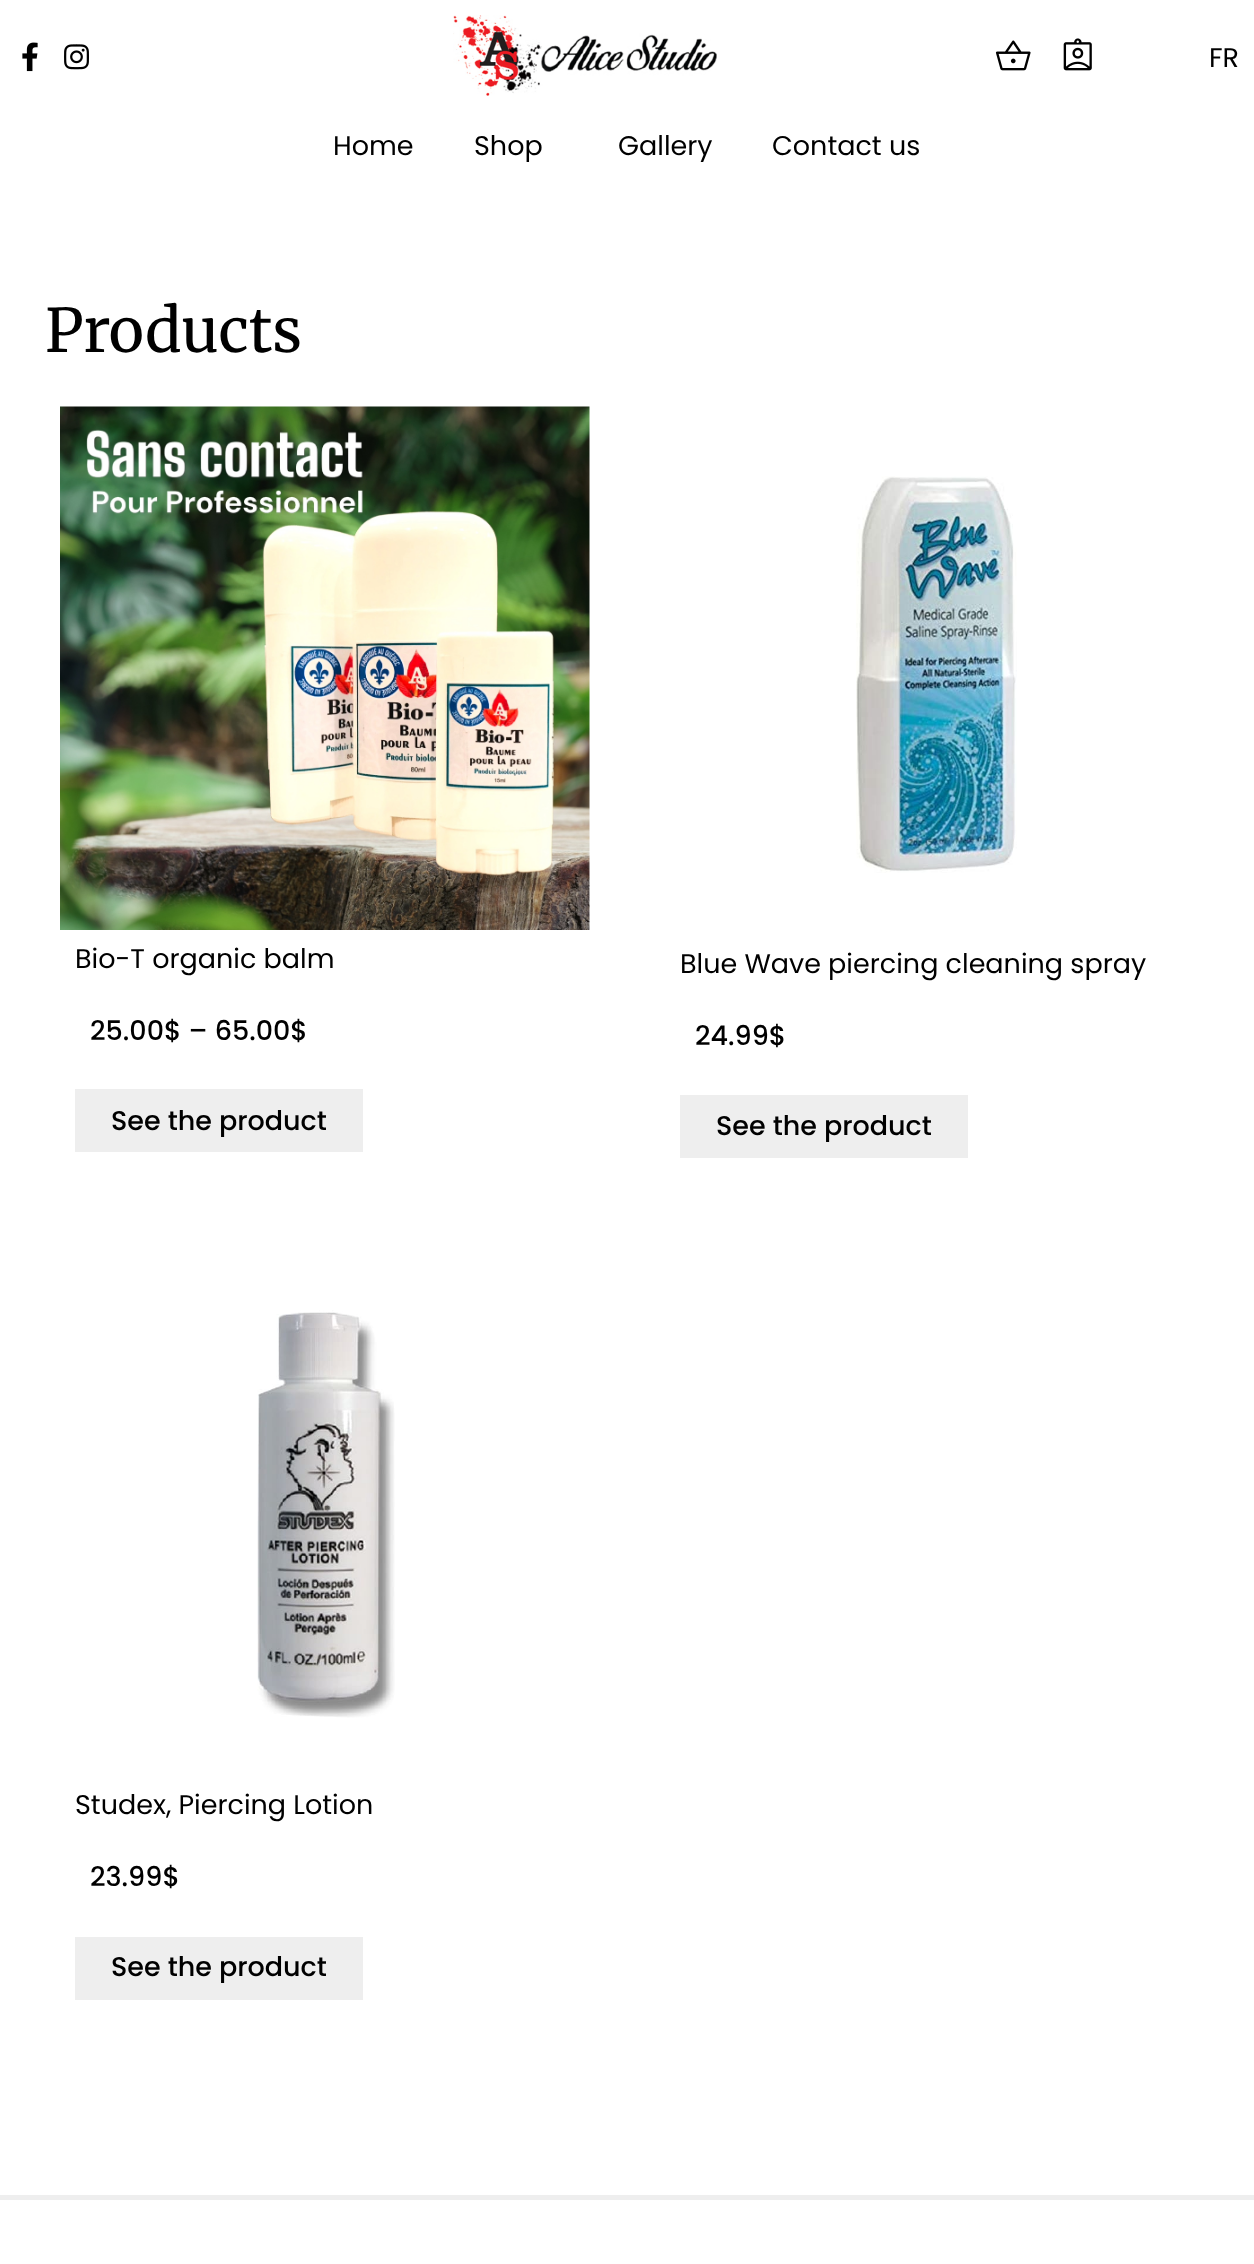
<svg xmlns="http://www.w3.org/2000/svg" width="1254" height="2264" viewBox="0 0 1254 2264">
  <rect width="100%" height="100%" fill="#fff"/>
  <image x="22" y="42" width="16" height="30" href="img/1.png"/>
  <image x="64" y="44" width="25" height="26" href="img/2.png"/>
  <image x="453" y="15" width="264" height="81" href="img/3.png"/>
  <image x="995" y="40" width="36" height="31" href="img/4.png"/>
  <image x="1063" y="38" width="29" height="33" href="img/5.png"/>
  <image x="60" y="406" width="530" height="524" href="img/6.png"/>
  <path d="M75 1089h288v63H75z" fill="#eee"/>
  <image x="856" y="476" width="161" height="397" href="img/7.png"/>
  <path d="M680 1095h288v63H680z" fill="#eee"/>
  <image x="257" y="1310" width="138" height="408" href="img/8.png"/>
  <path d="M75 1937h288v63H75z" fill="#eee"/>
  <path d="M0 2195h1254v5H0z" fill="#eee"/>
  <g font-family="Poppins" font-size="27" fill="#000">
    <text x="1209" y="67">FR</text>
    <text x="333" y="155">Home</text>
    <text x="474" y="155">Shop</text>
    <text x="618" y="155">Gallery</text>
    <text x="772" y="155">Contact us</text>
  </g>
  <text x="45" y="352" font-family="Merriweather" font-size="60" fill="#000">Products</text>
  <text x="75" y="968" font-family="Poppins" font-size="27" fill="#000">Bio-T organic balm</text>
  <g font-family="Poppins" font-size="27" font-weight="500" fill="#000">
    <text x="90" y="1040">25.00$ – 65.00$</text>
    <text x="111" y="1130">See the product</text>
  </g>
  <text x="680" y="973" font-family="Poppins" font-size="27" fill="#000">Blue Wave piercing cleaning spray</text>
  <g font-family="Poppins" font-size="27" font-weight="500" fill="#000">
    <text x="695" y="1045">24.99$</text>
    <text x="716" y="1135">See the product</text>
  </g>
  <text x="75" y="1814" font-family="Poppins" font-size="27" fill="#000">Studex, Piercing Lotion</text>
  <g font-family="Poppins" font-size="27" font-weight="500" fill="#000">
    <text x="90" y="1886">23.99$</text>
    <text x="111" y="1976">See the product</text>
  </g>
</svg>
